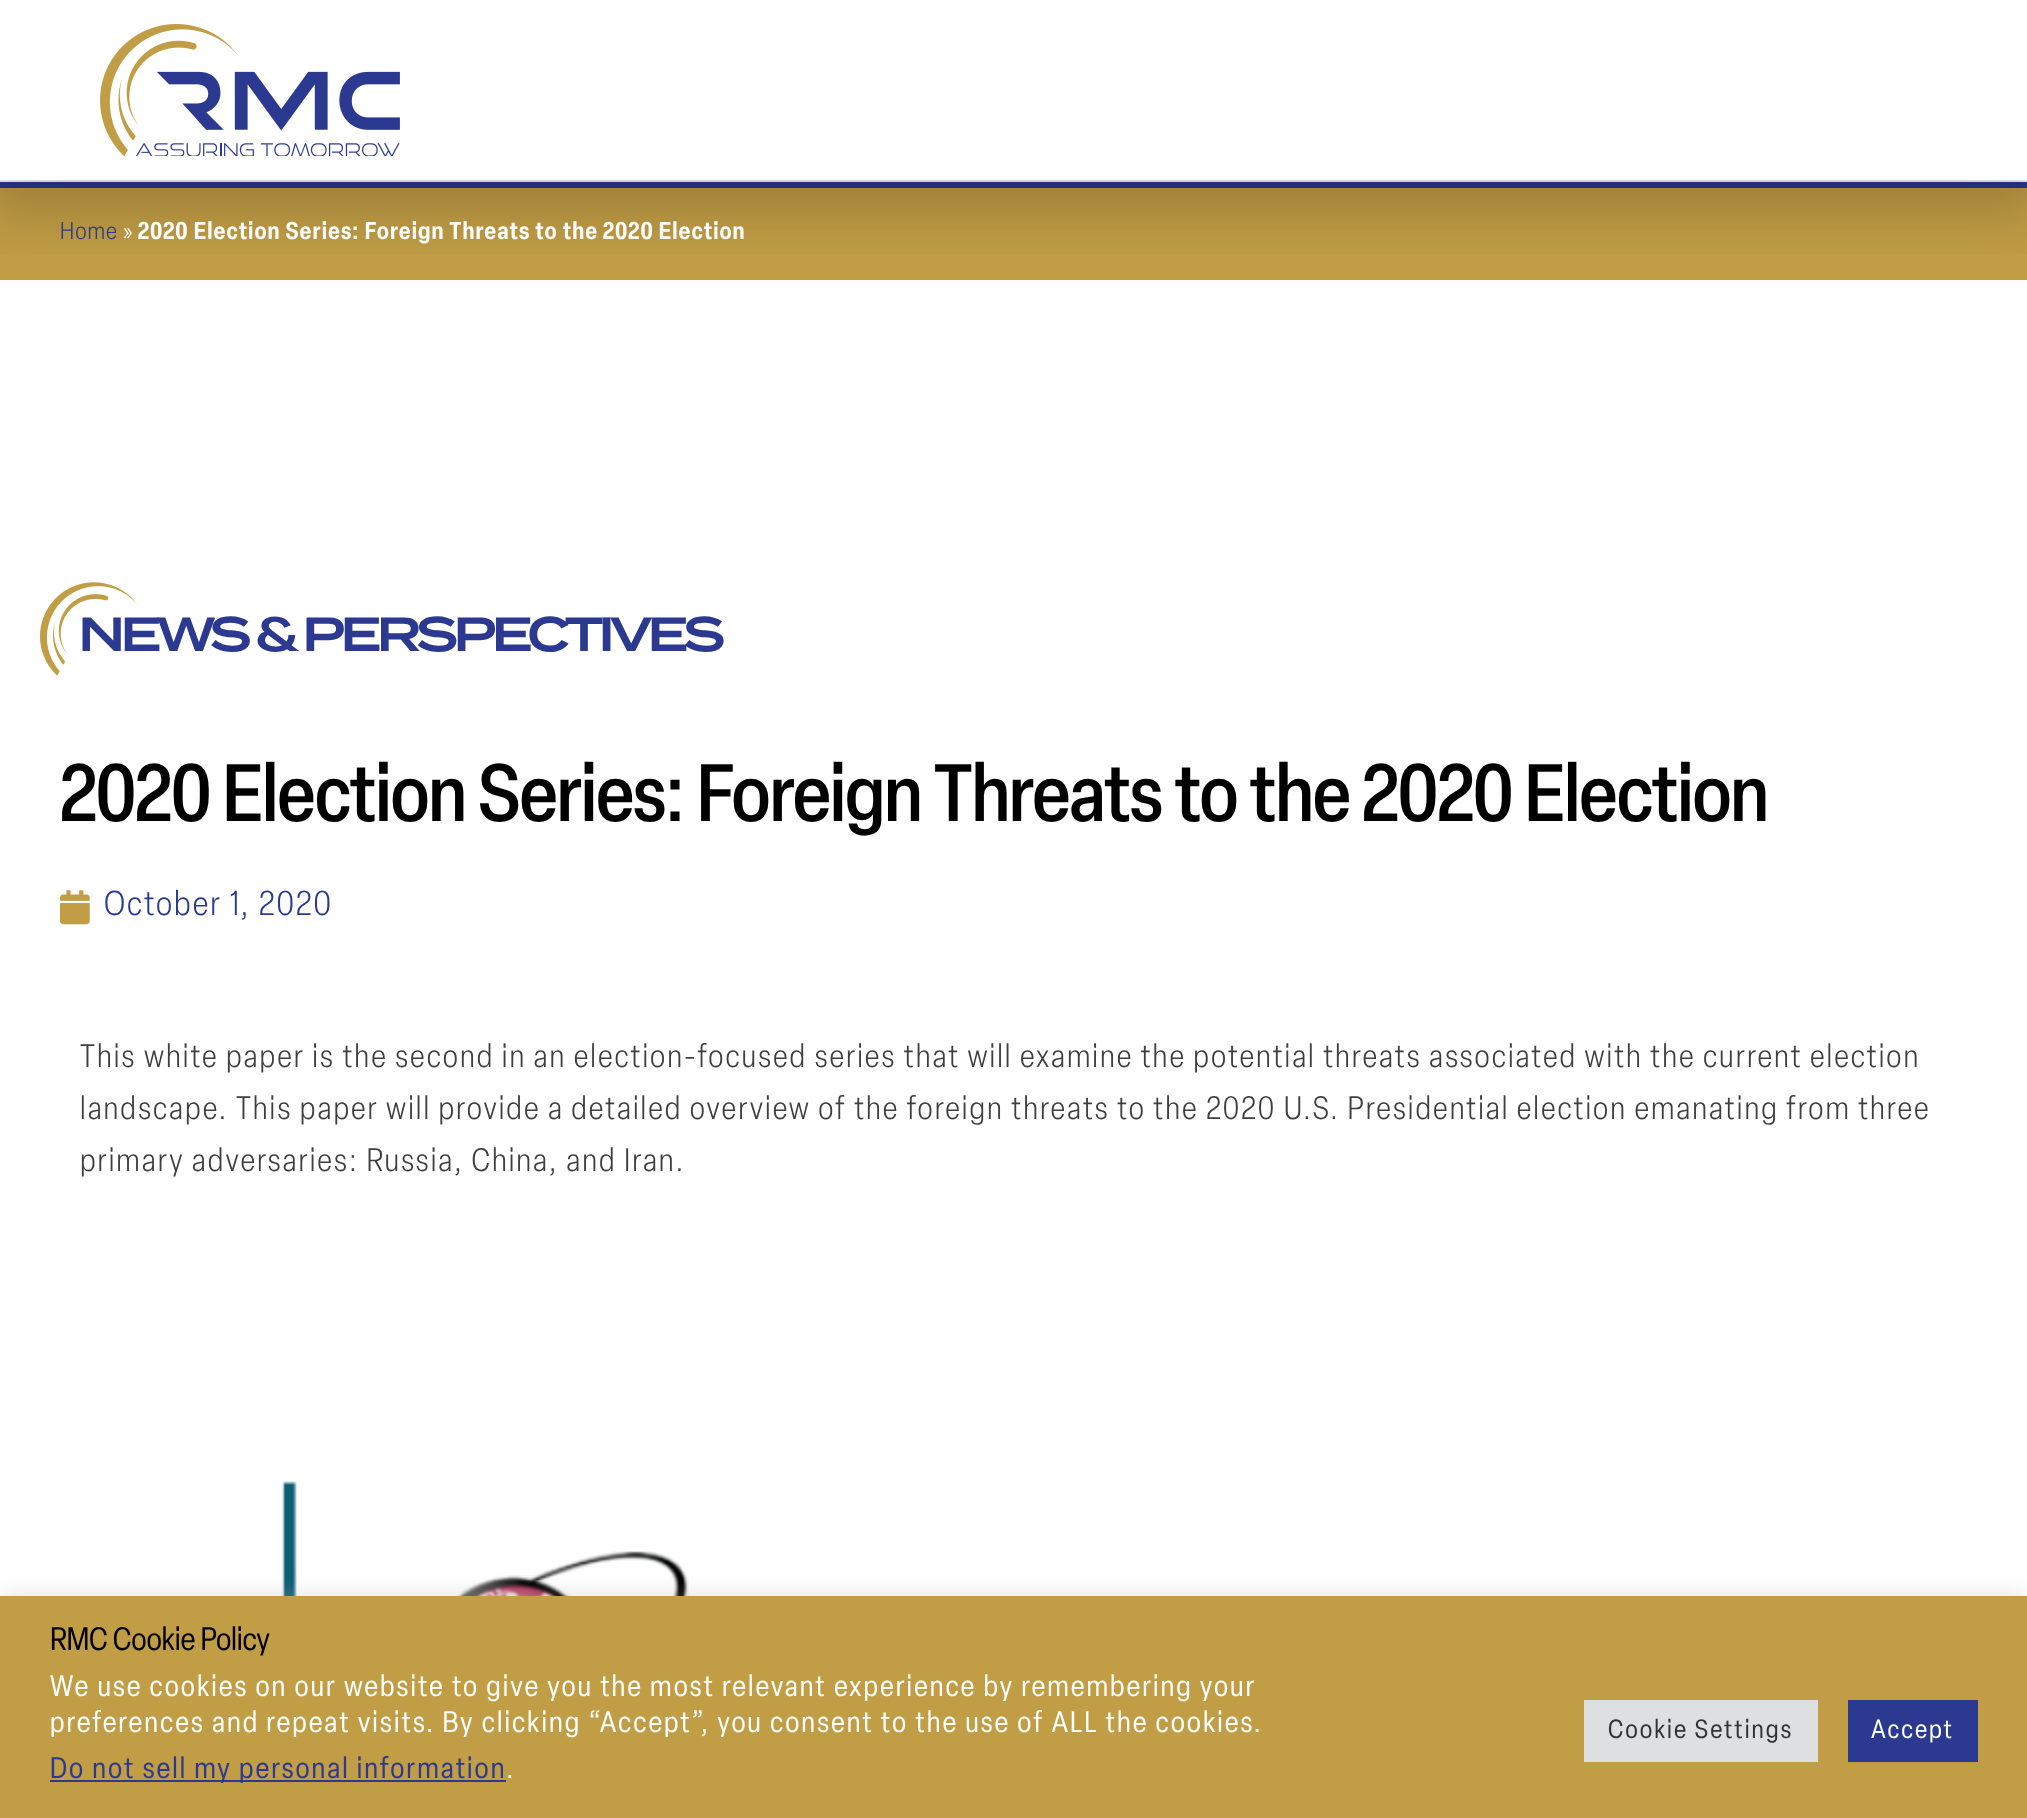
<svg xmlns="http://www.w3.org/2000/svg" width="2027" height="1818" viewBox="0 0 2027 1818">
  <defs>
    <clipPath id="clip1"><path d="M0 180h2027v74H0z"/></clipPath>
  </defs>
  <rect width="100%" height="100%" fill="#fff"/>
  <path d="M0 188h2027v92H0z" fill="#c19d45"/>
  <path d="M0 182h2027v6H0z" fill="#2b3990"/>
  <g clip-path="url(#clip1)">
    <path d="M-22 -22h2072v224H-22z" fill="#00000040" filter="blur(37px)"/>
  </g>
  <image x="100" y="24" width="300" height="132" href="img/1.png"/>
  <image x="40" y="582" width="98" height="94" href="img/2.png"/>
  <image x="60" y="890" width="30" height="35" href="img/3.png"/>
  <image x="281" y="1481" width="704" height="115" href="img/4.png"/>
  <path d="M0 1594h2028v222H0z" fill="#acabab4d" filter="blur(10px)"/>
  <path d="M0 1596h2027v222H0z" fill="#c19d45"/>
  <path d="M50 1780h456v2H50z" fill="#2b3990"/>
  <path d="M1584 1700h234v62H1584z" fill="#dedfe0"/>
  <path d="M1848 1700h130v62H1848z" fill="#2b3990"/>
  <text x="60" y="239" font-family="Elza" font-size="24" font-weight="300" letter-spacing="1" fill="#2b3990">Home</text>
  <text x="123" y="239" font-family="Elza" font-size="24" font-weight="300" letter-spacing="1" fill="#fff">»</text>
  <text x="138" y="239" font-family="Elza" font-size="24" font-weight="600" letter-spacing="1" fill="#fff">2020 Election Series: Foreign Threats to the 2020 Election</text>
  <text x="78" y="651" font-family="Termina" font-size="48" font-weight="600" letter-spacing="-5" fill="#2b3990">NEWS &amp; PERSPECTIVES</text>
  <text x="60" y="821" font-family="Elza" font-size="80" font-weight="500" letter-spacing="-1.4" fill="#000">2020 Election Series: Foreign Threats to the 2020 Election</text>
  <text x="104" y="915" font-family="Elza" font-size="34" font-weight="300" letter-spacing="2" fill="#2b3990">October 1, 2020</text>
  <g font-family="Elza" font-size="32" font-weight="300" letter-spacing="2" fill="#3e3e3e">
    <text x="80" y="1067">This white paper is the second in an election-focused series that will examine the potential threats associated with the current election</text>
    <text x="80" y="1119">landscape. This paper will provide a detailed overview of the foreign threats to the 2020 U.S. Presidential election emanating from three</text>
    <text x="80" y="1171">primary adversaries: Russia, China, and Iran.</text>
  </g>
  <text x="50" y="1650" font-family="Elza" font-size="32" letter-spacing="-0.25" fill="#000">RMC Cookie Policy</text>
  <g font-family="Elza" font-size="29.35" letter-spacing="2" fill="#fff">
    <text x="50" y="1696">We use cookies on our website to give you the most relevant experience by remembering your</text>
    <text x="50" y="1732">preferences and repeat visits. By clicking “Accept”, you consent to the use of ALL the cookies.</text>
  </g>
  <text x="50" y="1778" font-family="Elza" font-size="29.35" letter-spacing="2" fill="#2b3990">Do not sell my personal information</text>
  <text x="506" y="1778" font-family="Elza" font-size="29.35" letter-spacing="2" fill="#fff">.</text>
  <text x="1608" y="1738" font-family="Elza" font-size="26" letter-spacing="2" fill="#333">Cookie Settings</text>
  <text x="1871" y="1738" font-family="Elza" font-size="26" letter-spacing="2" fill="#fff">Accept</text>
</svg>
